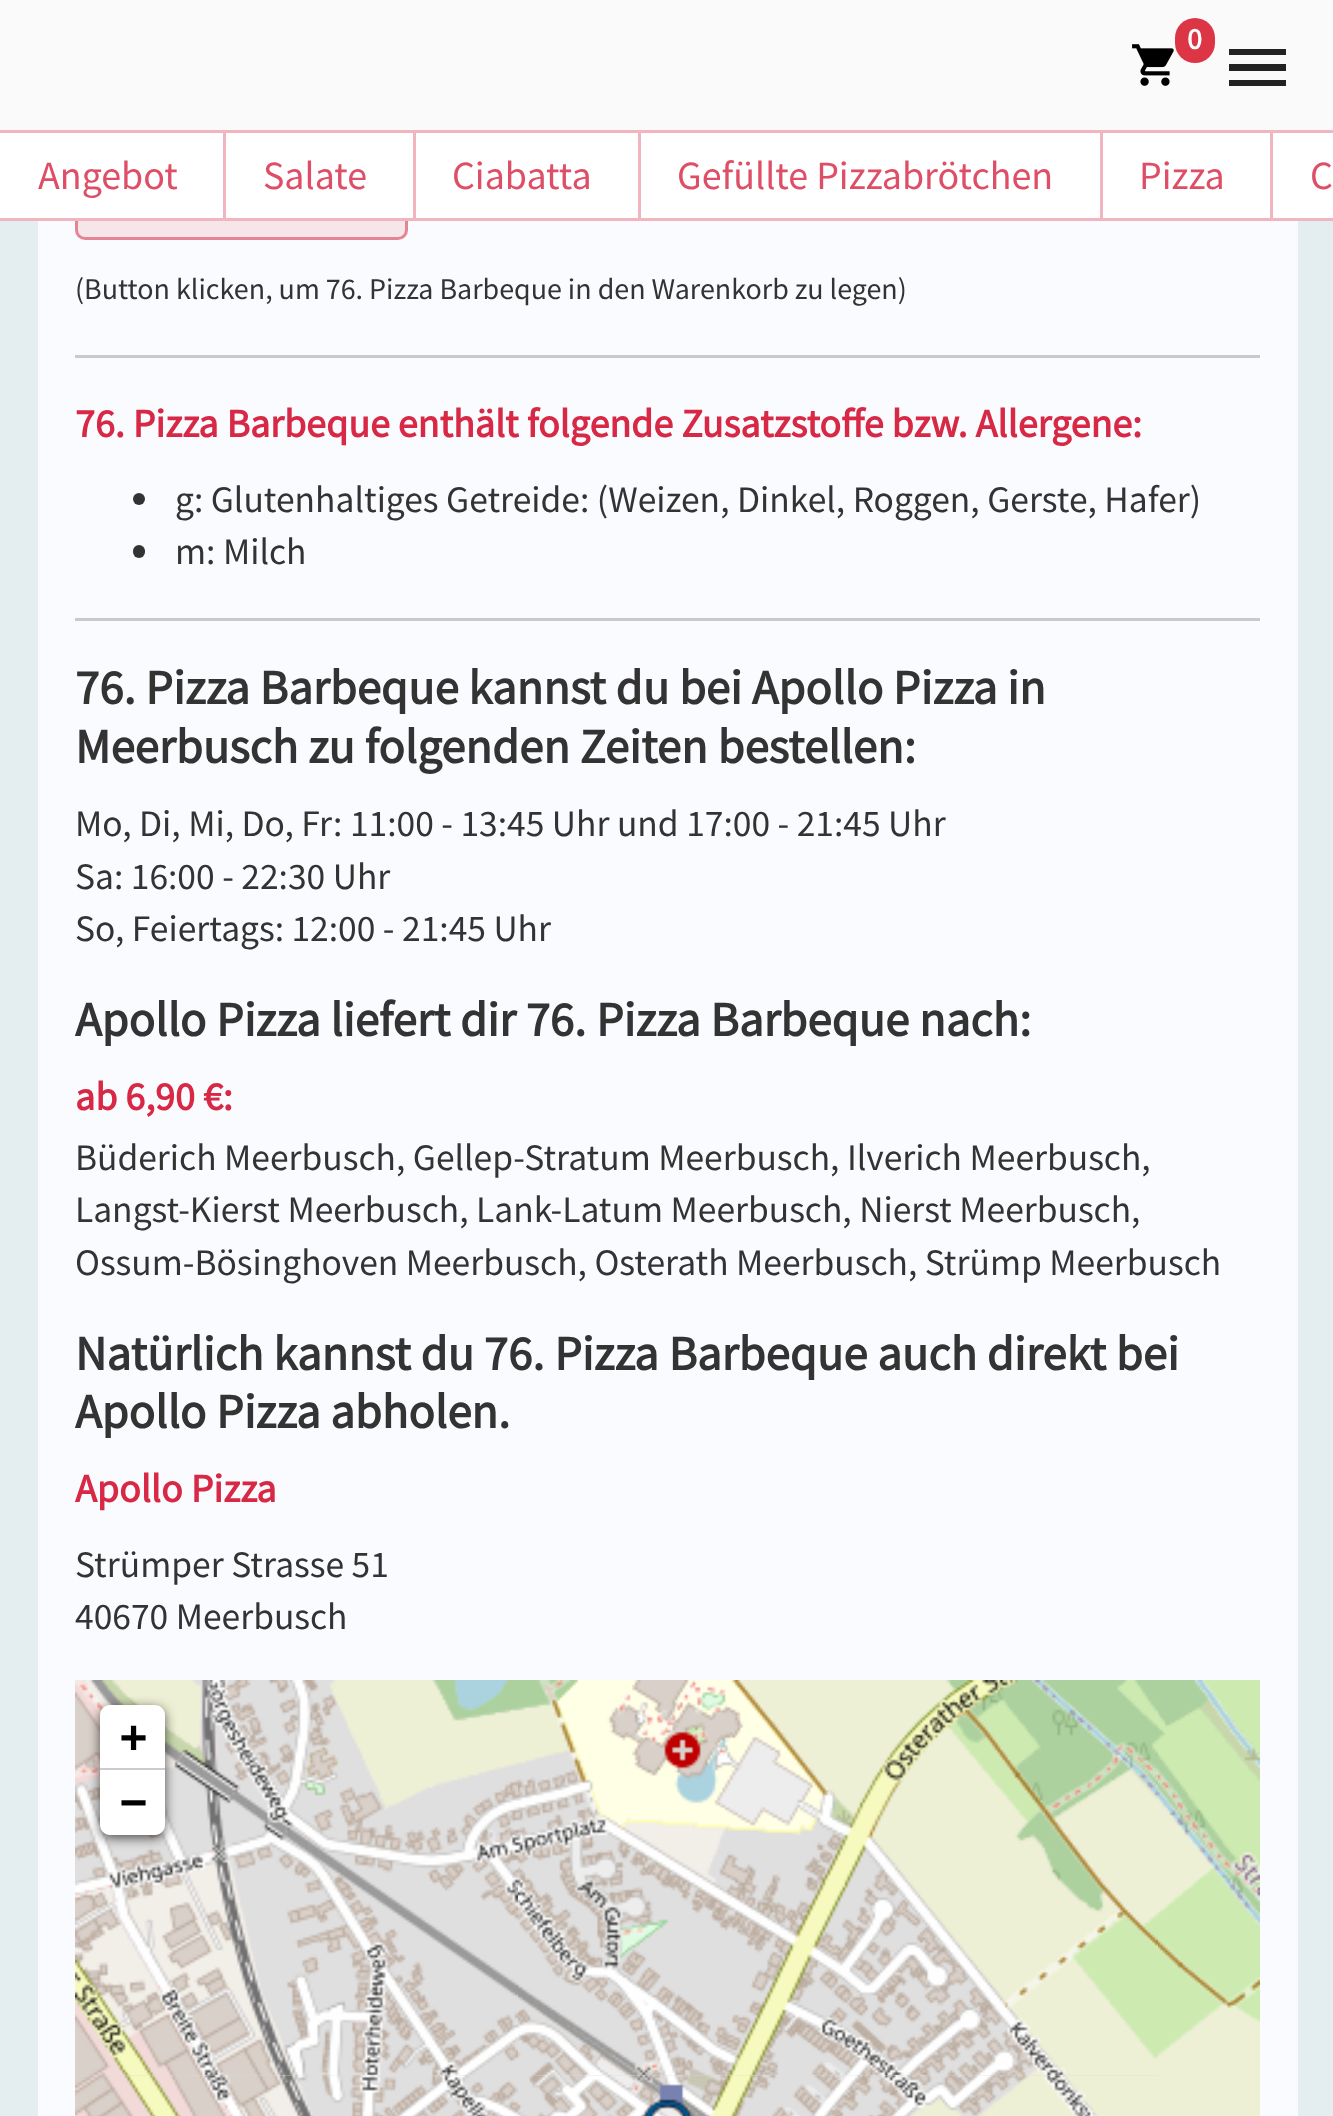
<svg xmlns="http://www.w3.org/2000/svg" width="1333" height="2116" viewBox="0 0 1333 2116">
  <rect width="100%" height="100%" fill="#e4eef1"/>
  <path d="M0 0h1333v130H0z" fill="#fafafa"/>
  <rect x="1175" y="18" width="40" height="45" rx="20" fill="#dc3545"/>
  <image x="1132" y="44" width="42" height="42" href="img/1.png"/>
  <path d="M1229 86H1286V80H1229ZM1229 71H1286V64H1229ZM1229 49V55H1286V49Z" fill="#222"/>
  <path d="M38 221h1260v1895H38z" fill="#fafbfe"/>
  <rect x="76.5" y="166.5" width="330" height="72" rx="8.5" fill="#f6e6e9" stroke="#e58494" stroke-width="3"/>
  <path d="M0 133h1333v85H0z" fill="#fff"/>
  <path d="M0 130h1333v3H0z" fill="#f0b5bf"/>
  <path d="M0 218h1333v3H0z" fill="#f0b5bf"/>
  <path d="M223 133h3v85H223z" fill="#f0b5bf"/>
  <path d="M413 133h3v85H413z" fill="#f0b5bf"/>
  <path d="M638 133h3v85H638z" fill="#f0b5bf"/>
  <path d="M1100 133h3v85H1100z" fill="#f0b5bf"/>
  <path d="M1270 133h3v85H1270z" fill="#f0b5bf"/>
  <path d="M75 355h1185v3H75z" fill="#c8c9cb"/>
  <circle cx="139" cy="499" r="6" fill="#333"/>
  <rect x="133" y="545" width="12" height="13" rx="6" fill="#333"/>
  <path d="M75 618h1185v3H75z" fill="#c8c9cb"/>
  <path d="M75 2075h1083v1H75z" fill="#ddd"/>
  <image x="75" y="1680" width="443" height="395" href="img/2.png"/>
  <image x="518" y="1680" width="640" height="395" href="img/3.png"/>
  <image x="1158" y="1680" width="102" height="395" href="img/4.png"/>
  <image x="75" y="2074" width="443" height="42" href="img/5.png"/>
  <image x="518" y="2074" width="640" height="42" href="img/6.png"/>
  <path d="M1158 2075h102v41H1158z" fill="#eef0d5"/>
  <image x="641" y="2099" width="53" height="17" href="img/7.png"/>
  <rect x="100" y="1708" width="65" height="130" rx="10" fill="#000000a6" filter="blur(6px)"/>
  <path d="M110 1705H155C160.5 1705 165 1709.5 165 1715V1770H100V1715C100 1709.5 104.5 1705 110 1705Z" fill="#fff"/>
  <path d="M100 1768h65v2H100z" fill="#ccc"/>
  <path d="M100 1770H165V1825C165 1830.5 160.5 1835 155 1835H110C104.5 1835 100 1830.5 100 1825Z" fill="#fff"/>
  <text x="1187" y="49" font-family="Source Sans Pro" font-size="30" font-weight="bold" fill="#fff">0</text>
  <g font-family="Source Sans Pro" font-size="40" fill="#de4e66">
    <text x="38" y="189">Angebot</text>
    <text x="263" y="189">Salate</text>
    <text x="452" y="189">Ciabatta</text>
    <text x="677" y="189">Gefüllte Pizzabrötchen</text>
    <text x="1139" y="189">Pizza</text>
    <text x="1310" y="189">C</text>
  </g>
  <text x="75" y="299" font-family="Source Sans Pro" font-size="30" fill="#333">(Button klicken, um 76. Pizza Barbeque in den Warenkorb zu legen)</text>
  <text x="75" y="437" font-family="Source Sans Pro" font-size="40" font-weight="bold" fill="#d72845">76. Pizza Barbeque enthält folgende Zusatzstoffe bzw. Allergene:</text>
  <g font-family="Source Sans Pro" font-size="37.5" fill="#333">
    <text x="175" y="512">g: Glutenhaltiges Getreide: (Weizen, Dinkel, Roggen, Gerste, Hafer)</text>
    <text x="175" y="564">m: Milch</text>
  </g>
  <g font-family="Source Sans Pro" font-size="48.75" font-weight="bold" fill="#333">
    <text x="75" y="704">76. Pizza Barbeque kannst du bei Apollo Pizza in</text>
    <text x="75" y="763">Meerbusch zu folgenden Zeiten bestellen:</text>
  </g>
  <g font-family="Source Sans Pro" font-size="37.5" fill="#333">
    <text x="75" y="836">Mo, Di, Mi, Do, Fr: 11:00 - 13:45 Uhr und 17:00 - 21:45 Uhr</text>
    <text x="75" y="889">Sa: 16:00 - 22:30 Uhr</text>
    <text x="75" y="941">So, Feiertags: 12:00 - 21:45 Uhr</text>
  </g>
  <text x="75" y="1036" font-family="Source Sans Pro" font-size="48.75" font-weight="bold" fill="#333">Apollo Pizza liefert dir 76. Pizza Barbeque nach:</text>
  <text x="75" y="1110" font-family="Source Sans Pro" font-size="40" font-weight="bold" fill="#d72845">ab 6,90 €:</text>
  <g font-family="Source Sans Pro" font-size="37.5" fill="#333">
    <text x="75" y="1170">Büderich Meerbusch, Gellep-Stratum Meerbusch, Ilverich Meerbusch,</text>
    <text x="75" y="1222">Langst-Kierst Meerbusch, Lank-Latum Meerbusch, Nierst Meerbusch,</text>
    <text x="75" y="1275">Ossum-Bösinghoven Meerbusch, Osterath Meerbusch, Strümp Meerbusch</text>
  </g>
  <g font-family="Source Sans Pro" font-size="48.75" font-weight="bold" fill="#333">
    <text x="75" y="1370">Natürlich kannst du 76. Pizza Barbeque auch direkt bei</text>
    <text x="75" y="1428">Apollo Pizza abholen.</text>
  </g>
  <text x="75" y="1502" font-family="Source Sans Pro" font-size="40" font-weight="bold" fill="#d72845">Apollo Pizza</text>
  <g font-family="Source Sans Pro" font-size="37.5" fill="#333">
    <text x="75" y="1577">Strümper Strasse 51</text>
    <text x="75" y="1629">40670 Meerbusch</text>
  </g>
  <g font-family="DejaVu Sans Mono" font-size="45" font-weight="bold" fill="#000">
    <text x="120" y="1752">+</text>
    <text x="120" y="1817">−</text>
  </g>
</svg>
